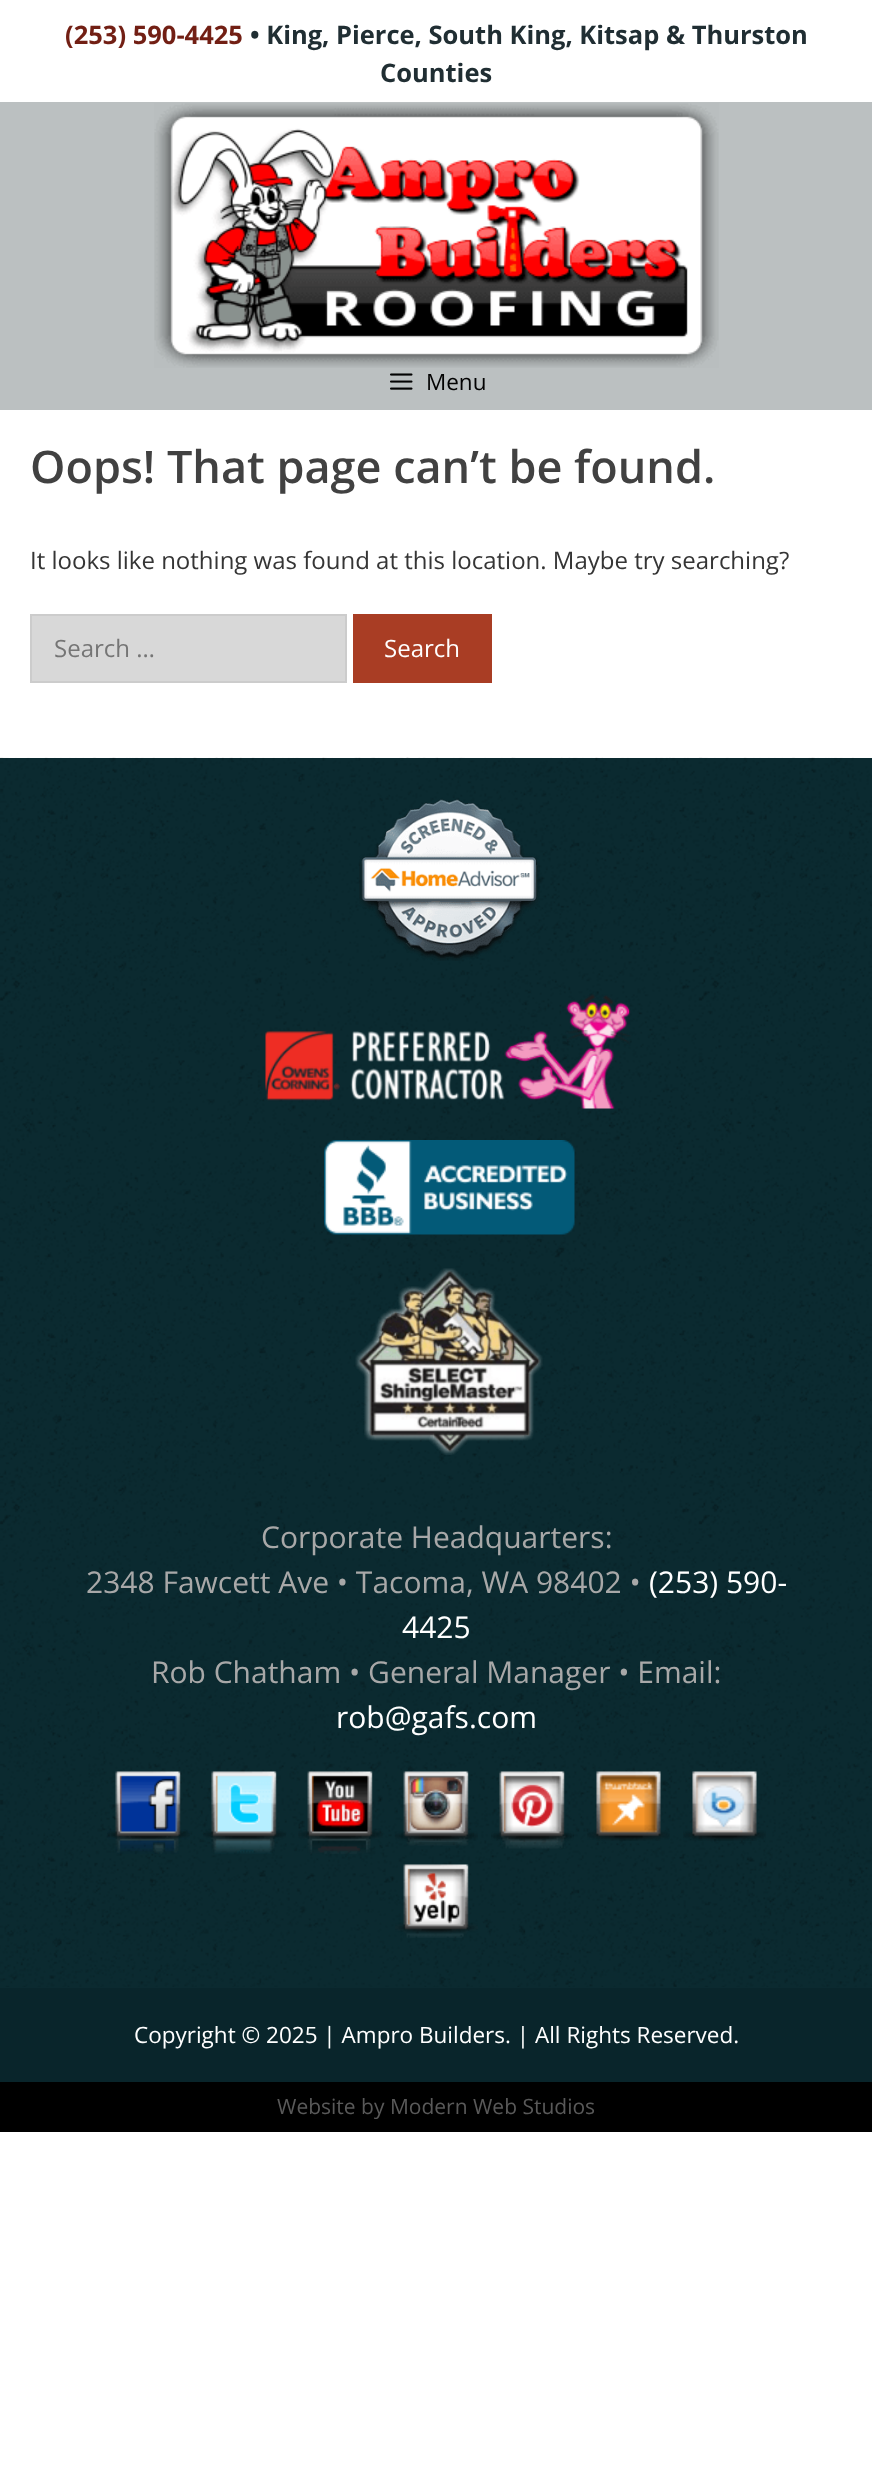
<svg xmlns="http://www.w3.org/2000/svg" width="872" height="2473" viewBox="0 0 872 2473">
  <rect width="100%" height="100%" fill="#fff"/>
  <path d="M0 102h872v308H0z" fill="#bbc0c1"/>
  <image x="154" y="103" width="565" height="265" href="img/1.png"/>
  <image x="390" y="373" width="23" height="17" href="img/2.png"/>
  <path d="M31 615h315v67H31z" fill="#d8d8d8" stroke="#ccc" stroke-width="2"/>
  <path d="M353 614h139v69H353z" fill="#a93d24"/>
  <path d="M0 758h872v1230H0z" fill="#0b2a30"/>
  <image x="0" y="757" width="872" height="1230" href="img/3.png"/>
  <image x="359" y="799" width="181" height="162" href="img/4.png"/>
  <image x="265" y="994" width="366" height="115" href="img/5.png"/>
  <image x="324" y="1140" width="251" height="95" href="img/6.png"/>
  <image x="355" y="1268" width="188" height="187" href="img/7.png"/>
  <image x="107" y="1771" width="83" height="83" href="img/8.png"/>
  <image x="203" y="1771" width="83" height="83" href="img/9.png"/>
  <image x="298" y="1771" width="85" height="83" href="img/10.png"/>
  <image x="395" y="1771" width="83" height="75" href="img/11.png"/>
  <image x="491" y="1771" width="83" height="78" href="img/12.png"/>
  <image x="587" y="1771" width="83" height="70" href="img/13.png"/>
  <image x="683" y="1771" width="83" height="70" href="img/14.png"/>
  <image x="395" y="1864" width="83" height="74" href="img/15.png"/>
  <path d="M0 1988h872v94H0z" fill="#09252b"/>
  <path d="M0 2082h872v50H0z" fill="#000"/>
  <text x="65" y="44" font-family="Open Sans" font-size="25.5" font-weight="bold" fill="#721f14">(253) 590-4425</text>
  <g font-family="Open Sans" font-size="25.5" font-weight="bold" fill="#202e33">
    <text x="250" y="44">• King, Pierce, South King, Kitsap &amp; Thurston</text>
    <text x="380" y="82">Counties</text>
  </g>
  <text x="426" y="390" font-family="Open Sans" font-size="22.5" fill="#020202">Menu</text>
  <text x="30" y="483" font-family="Open Sans" font-size="45" font-weight="600" fill="#414141">Oops! That page can’t be found.</text>
  <text x="30" y="569" font-family="Open Sans" font-size="24" fill="#353535">It looks like nothing was found at this location. Maybe try searching?</text>
  <text x="54" y="657" font-family="Open Sans" font-size="24" fill="#757575">Search …</text>
  <text x="384" y="657" font-family="Open Sans" font-size="24" fill="#fff">Search</text>
  <g font-family="Open Sans" font-size="30" fill="#a8a8a8">
    <text x="261" y="1548">Corporate Headquarters:</text>
    <text x="86" y="1593">2348 Fawcett Ave • Tacoma, WA 98402 •</text>
  </g>
  <g font-family="Open Sans" font-size="30" fill="#fff">
    <text x="649" y="1593">(253) 590-</text>
    <text x="402" y="1638">4425</text>
  </g>
  <text x="151" y="1683" font-family="Open Sans" font-size="30" fill="#a8a8a8">Rob Chatham • General Manager • Email:</text>
  <text x="336" y="1728" font-family="Open Sans" font-size="30" fill="#fff">rob@gafs.com</text>
  <text x="134" y="2043" font-family="Open Sans" font-size="22.5" fill="#fff">Copyright © 2025 | Ampro Builders. | All Rights Reserved.</text>
  <text x="277" y="2114" font-family="Open Sans" font-size="21" fill="#595959">Website by Modern Web Studios</text>
</svg>
